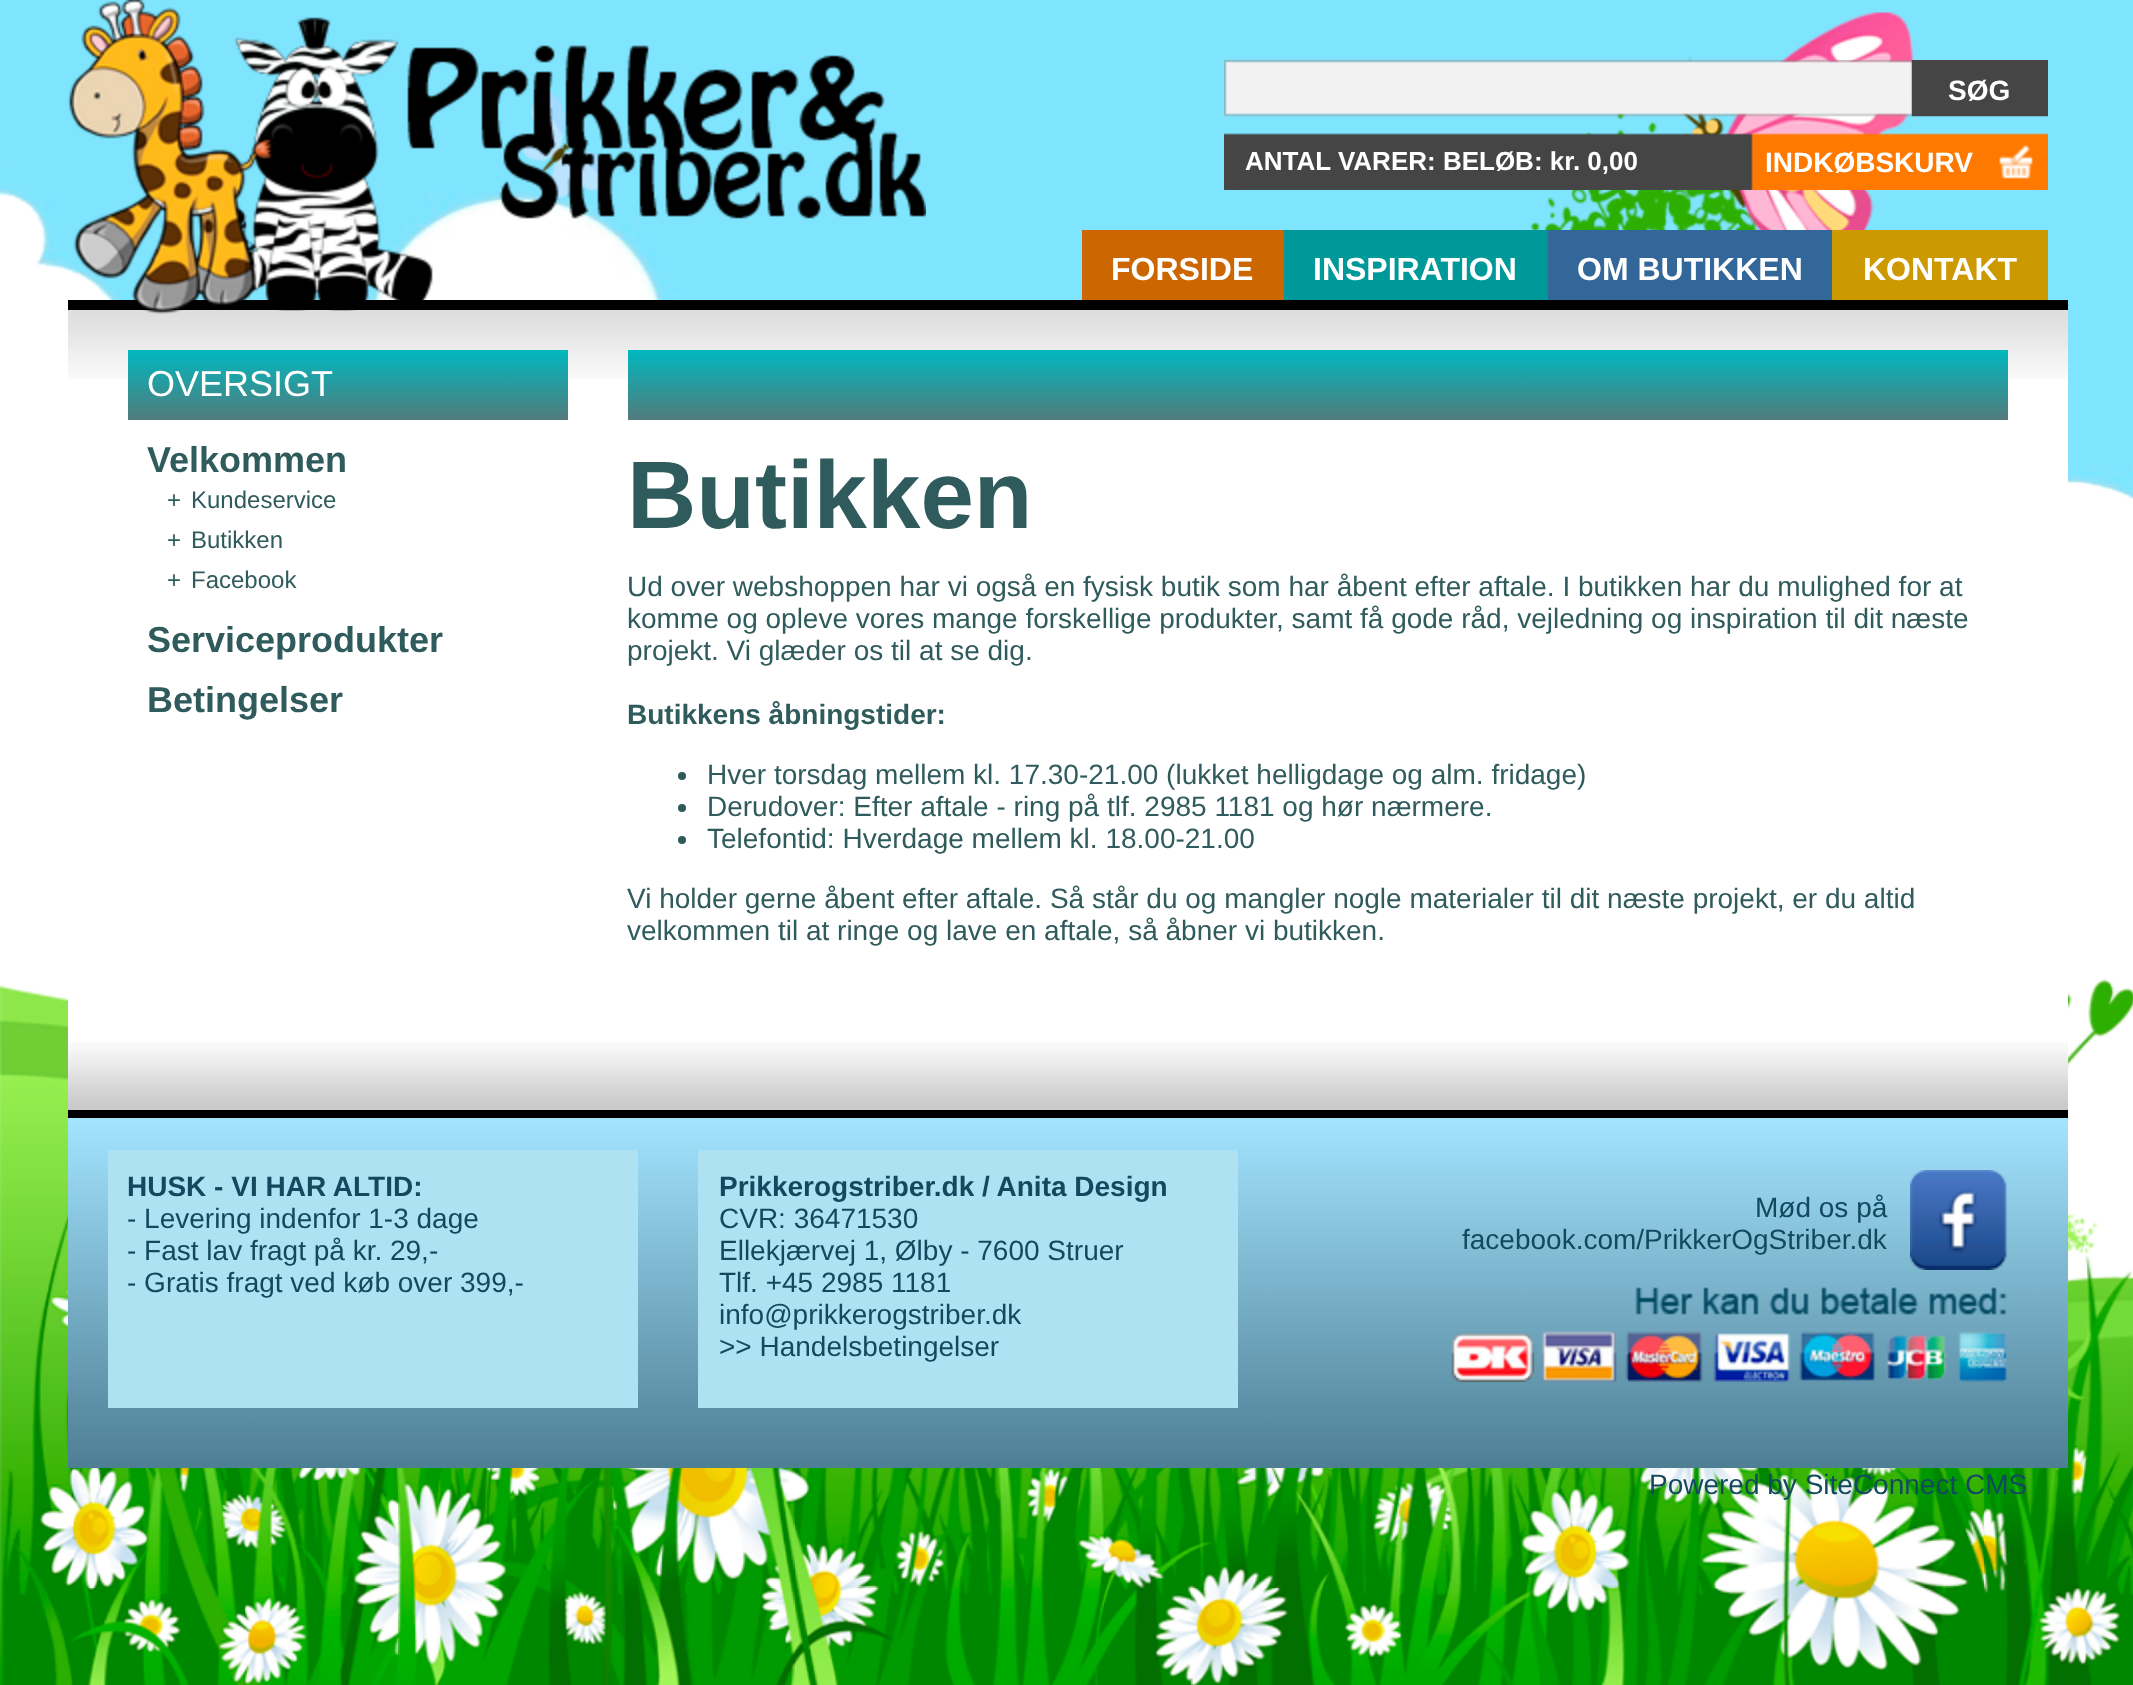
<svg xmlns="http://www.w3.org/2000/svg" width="2133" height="1685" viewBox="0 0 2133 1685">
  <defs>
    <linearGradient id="g1" gradientUnits="userSpaceOnUse" x1="348" y1="350" x2="348" y2="420"><stop offset="0" stop-color="#00b8bf"/><stop offset="1" stop-color="#527b7c"/></linearGradient>
    <linearGradient id="g2" gradientUnits="userSpaceOnUse" x1="1318" y1="350" x2="1318" y2="420"><stop offset="0" stop-color="#00b8bf"/><stop offset="1" stop-color="#527b7c"/></linearGradient>
    <linearGradient id="g3" gradientUnits="userSpaceOnUse" x1="1068" y1="1118" x2="1068" y2="1468"><stop offset="0" stop-color="#a3e4ff"/><stop offset="1" stop-color="#4e7e93"/></linearGradient>
  </defs>
  <rect width="100%" height="100%" fill="#fff"/>
  <image x="0" y="0" width="2133" height="1685" href="img/1.png"/>
  <path d="M68 300h2000v10H68z" fill="#000"/>
  <image x="68" y="310" width="2000" height="69" href="img/5.png"/>
  <image x="68" y="0" width="858" height="314" href="img/2.png"/>
  <image x="1224" y="60" width="824" height="130" href="img/3.png"/>
  <path d="M1912 60h136v56H1912z" fill="#454545"/>
  <path d="M1082 230h202v70H1082z" fill="#c60"/>
  <path d="M1284 230h264v70H1284z" fill="#099"/>
  <path d="M1548 230h284v70H1548z" fill="#369"/>
  <path d="M1832 230h216v70H1832z" fill="#c90"/>
  <path d="M68 379h2000v663H68z" fill="#fff"/>
  <image x="68" y="1042" width="2000" height="68" href="img/4.png"/>
  <path d="M68 1110h2000v8H68z" fill="#000"/>
  <path d="M128 350h440v70H128z" fill="url(#g1)"/>
  <path d="M628 350h1380v70H628z" fill="url(#g2)"/>
  <circle cx="682" cy="776" r="4" fill="#305b5c"/>
  <circle cx="682" cy="808" r="4" fill="#305b5c"/>
  <circle cx="682" cy="840" r="4" fill="#305b5c"/>
  <path d="M68 1118h2000v350H68z" fill="url(#g3)"/>
  <path d="M108 1150h530v258H108z" fill="#aee1f2"/>
  <path d="M698 1150h540v258H698z" fill="#aee1f2"/>
  <image x="1910" y="1170" width="98" height="100" href="img/6.png"/>
  <image x="1451" y="1287" width="556" height="95" href="img/7.png"/>
  <text x="1948" y="100" font-family="Liberation Sans" font-size="28" font-weight="bold" fill="#fff">SØG</text>
  <text x="1245" y="170" font-family="Liberation Sans" font-size="26" font-weight="bold" fill="#fff">ANTAL VARER: BELØB: kr. 0,00</text>
  <text x="1765" y="172" font-family="Liberation Sans" font-size="28" font-weight="bold" fill="#fff">INDKØBSKURV</text>
  <g font-family="Liberation Sans" font-size="32" font-weight="bold" fill="#fff">
    <text x="1111" y="280">FORSIDE</text>
    <text x="1313" y="280">INSPIRATION</text>
    <text x="1577" y="280">OM BUTIKKEN</text>
    <text x="1863" y="280">KONTAKT</text>
  </g>
  <text x="147" y="396" font-family="Liberation Sans" font-size="36" fill="#fff">OVERSIGT</text>
  <text x="147" y="472" font-family="Liberation Sans" font-size="36" font-weight="bold" fill="#305b5c">Velkommen</text>
  <g font-family="Liberation Sans" font-size="24" fill="#305b5c">
    <text x="167" y="508">+</text>
    <text x="191" y="508">Kundeservice</text>
    <text x="167" y="548">+</text>
    <text x="191" y="548">Butikken</text>
    <text x="167" y="588">+</text>
    <text x="191" y="588">Facebook</text>
  </g>
  <g font-family="Liberation Sans" font-size="36" font-weight="bold" fill="#305b5c">
    <text x="147" y="652">Serviceprodukter</text>
    <text x="147" y="712">Betingelser</text>
  </g>
  <text x="627" y="528" font-family="Liberation Sans" font-size="96" font-weight="bold" fill="#305b5c">Butikken</text>
  <g font-family="Liberation Sans" font-size="28" fill="#305b5c">
    <text x="627" y="596">Ud over webshoppen har vi også en fysisk butik som har åbent efter aftale. I butikken har du mulighed for at</text>
    <text x="627" y="628">komme og opleve vores mange forskellige produkter, samt få gode råd, vejledning og inspiration til dit næste</text>
    <text x="627" y="660">projekt. Vi glæder os til at se dig.</text>
  </g>
  <text x="627" y="724" font-family="Liberation Sans" font-size="28" font-weight="bold" fill="#305b5c">Butikkens åbningstider:</text>
  <g font-family="Liberation Sans" font-size="28" fill="#305b5c">
    <text x="707" y="784">Hver torsdag mellem kl. 17.30-21.00 (lukket helligdage og alm. fridage)</text>
    <text x="707" y="816">Derudover: Efter aftale - ring på tlf. 2985 1181 og hør nærmere.</text>
    <text x="707" y="848">Telefontid: Hverdage mellem kl. 18.00-21.00</text>
    <text x="627" y="908">Vi holder gerne åbent efter aftale. Så står du og mangler nogle materialer til dit næste projekt, er du altid</text>
    <text x="627" y="940">velkommen til at ringe og lave en aftale, så åbner vi butikken.</text>
  </g>
  <text x="127" y="1196" font-family="Liberation Sans" font-size="28" font-weight="bold" fill="#13495f">HUSK - VI HAR ALTID:</text>
  <g font-family="Liberation Sans" font-size="28" fill="#13495f">
    <text x="127" y="1228">- Levering indenfor 1-3 dage</text>
    <text x="127" y="1260">- Fast lav fragt på kr. 29,-</text>
    <text x="127" y="1292">- Gratis fragt ved køb over 399,-</text>
  </g>
  <text x="719" y="1196" font-family="Liberation Sans" font-size="28" font-weight="bold" fill="#13495f">Prikkerogstriber.dk / Anita Design</text>
  <g font-family="Liberation Sans" font-size="28" fill="#13495f">
    <text x="719" y="1228">CVR: 36471530</text>
    <text x="719" y="1260">Ellekjærvej 1, Ølby - 7600 Struer</text>
    <text x="719" y="1292">Tlf. +45 2985 1181</text>
    <text x="719" y="1324">info@prikkerogstriber.dk</text>
    <text x="719" y="1356">&gt;&gt; Handelsbetingelser</text>
    <text x="1755" y="1217">Mød os på</text>
    <text x="1462" y="1249">facebook.com/PrikkerOgStriber.dk</text>
    <text x="1649" y="1494">Powered by SiteConnect CMS</text>
  </g>
</svg>
